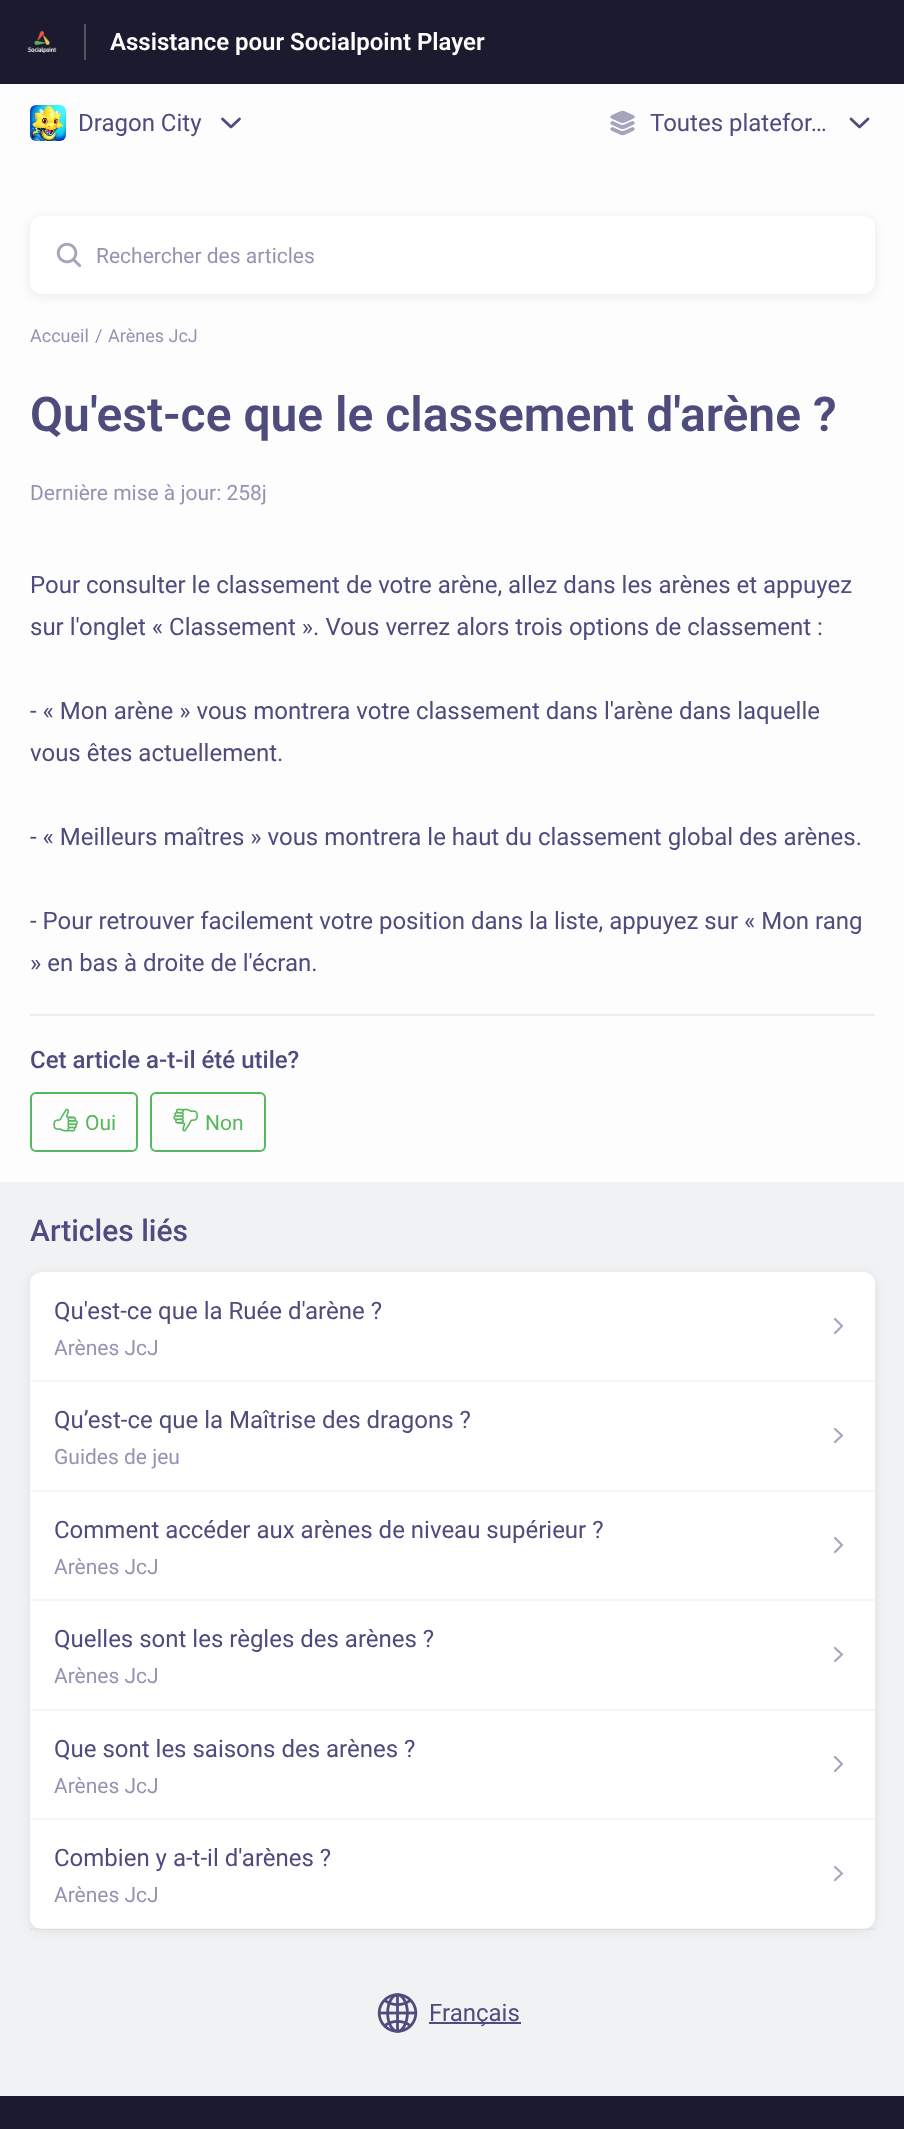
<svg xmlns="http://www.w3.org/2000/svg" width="904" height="2129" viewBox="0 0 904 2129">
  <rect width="100%" height="100%" fill="#fdfdfd"/>
  <path d="M0 0h904v84H0z" fill="#1b1a2e"/>
  <path d="M84 24h2v36H84z" fill="#545362"/>
  <image x="27" y="31" width="30" height="22" href="img/1.png"/>
  <image x="30" y="105" width="36" height="36" href="img/2.png"/>
  <path d="M222.5 119L231 127L239.5 119" fill="none" stroke="#4e4b7d" stroke-width="2.8" stroke-linecap="round" stroke-linejoin="round"/>
  <image x="610" y="110" width="25" height="26" href="img/3.png"/>
  <path d="M851 119L859.5 127L868 119" fill="none" stroke="#4e4b7d" stroke-width="2.8" stroke-linecap="round" stroke-linejoin="round"/>
  <path d="M0 1182h904v914H0z" fill="#f0f2f4"/>
  <rect x="30" y="218" width="845" height="78" rx="12" fill="#00000014" filter="blur(6px)"/>
  <rect x="30" y="216" width="845" height="78" rx="12" fill="#fff"/>
  <image x="56" y="242" width="26" height="26" href="img/4.png"/>
  <path d="M30 1014h845v2H30z" fill="#ededf2"/>
  <rect x="31" y="1093" width="106" height="58" rx="5" fill="none" stroke="#57b75d" stroke-width="2"/>
  <image x="53" y="1108" width="25" height="24" href="img/5.png"/>
  <rect x="151" y="1093" width="114" height="58" rx="5" fill="none" stroke="#57b75d" stroke-width="2"/>
  <image x="173" y="1108" width="25" height="24" href="img/6.png"/>
  <rect x="30" y="1274" width="845" height="657" rx="12" fill="#00000014" filter="blur(6px)"/>
  <rect x="30" y="1272" width="845" height="657" rx="12" fill="#fff"/>
  <path d="M30 1380h845v2H30z" fill="#f6f6f9"/>
  <path d="M835 1319L842 1326L835 1333" fill="none" stroke="#a7a5be" stroke-width="2.2" stroke-linecap="round" stroke-linejoin="round"/>
  <path d="M30 1490h845v2H30z" fill="#f6f6f9"/>
  <path d="M835 1429L842 1435.5L835 1442" fill="none" stroke="#a7a5be" stroke-width="2.2" stroke-linecap="round" stroke-linejoin="round"/>
  <path d="M30 1599h845v2H30z" fill="#f6f6f9"/>
  <path d="M835 1538L842 1545L835 1552" fill="none" stroke="#a7a5be" stroke-width="2.2" stroke-linecap="round" stroke-linejoin="round"/>
  <path d="M30 1709h845v2H30z" fill="#f6f6f9"/>
  <path d="M835 1648L842 1654.5L835 1661" fill="none" stroke="#a7a5be" stroke-width="2.2" stroke-linecap="round" stroke-linejoin="round"/>
  <path d="M30 1818h845v2H30z" fill="#f6f6f9"/>
  <path d="M835 1757L842 1764L835 1771" fill="none" stroke="#a7a5be" stroke-width="2.2" stroke-linecap="round" stroke-linejoin="round"/>
  <path d="M30 1928h845v2H30z" fill="#4e4b7d0d"/>
  <path d="M835 1867L842 1873.5L835 1880" fill="none" stroke="#a7a5be" stroke-width="2.2" stroke-linecap="round" stroke-linejoin="round"/>
  <image x="377" y="1993" width="41" height="40" href="img/7.png"/>
  <path d="M429 2022h92v2H429z" fill="#4e4b7d"/>
  <path d="M0 2096h904v33H0z" fill="#1b1a2e"/>
  <text x="110" y="50" font-family="Roboto" font-size="24" font-weight="600" fill="#fff">Assistance pour Socialpoint Player</text>
  <g font-family="Roboto" font-size="24" fill="#4e4b7d">
    <text x="78" y="131">Dragon City</text>
    <text x="650" y="131">Toutes platefor…</text>
  </g>
  <text x="96" y="263" font-family="Roboto" font-size="21" fill="#9593b1">Rechercher des articles</text>
  <g font-family="Roboto" font-size="18" fill="#9593b1">
    <text x="30" y="342">Accueil</text>
    <text x="95" y="342">/</text>
    <text x="108" y="342">Arènes JcJ</text>
  </g>
  <text x="30" y="431" font-family="Roboto" font-size="48" font-weight="600" fill="#4e4b7d">Qu'est-ce que le classement d'arène ?</text>
  <text x="30" y="500" font-family="Roboto" font-size="21" fill="#9593b1">Dernière mise à jour: 258j</text>
  <g font-family="Roboto" font-size="24" fill="#4e4b7d">
    <text x="30" y="593">Pour consulter le classement de votre arène, allez dans les arènes et appuyez</text>
    <text x="30" y="635">sur l'onglet « Classement ». Vous verrez alors trois options de classement :</text>
    <text x="30" y="719">- « Mon arène » vous montrera votre classement dans l'arène dans laquelle</text>
    <text x="30" y="761">vous êtes actuellement.</text>
    <text x="30" y="845">- « Meilleurs maîtres » vous montrera le haut du classement global des arènes.</text>
    <text x="30" y="929">- Pour retrouver facilement votre position dans la liste, appuyez sur « Mon rang</text>
    <text x="30" y="971">» en bas à droite de l'écran.</text>
  </g>
  <text x="30" y="1068" font-family="Roboto" font-size="24" font-weight="500" fill="#4e4b7d">Cet article a-t-il été utile?</text>
  <g font-family="Roboto" font-size="21" fill="#57b75d">
    <text x="85" y="1130">Oui</text>
    <text x="205" y="1130">Non</text>
  </g>
  <text x="30" y="1241" font-family="Roboto" font-size="30" font-weight="500" fill="#4e4b7d">Articles liés</text>
  <text x="54" y="1319" font-family="Roboto" font-size="24" fill="#4e4b7d">Qu'est-ce que la Ruée d'arène ?</text>
  <text x="54" y="1355" font-family="Roboto" font-size="21" fill="#9593b1">Arènes JcJ</text>
  <text x="54" y="1428" font-family="Roboto" font-size="24" fill="#4e4b7d">Qu’est-ce que la Maîtrise des dragons ?</text>
  <text x="54" y="1464" font-family="Roboto" font-size="21" fill="#9593b1">Guides de jeu</text>
  <text x="54" y="1538" font-family="Roboto" font-size="24" fill="#4e4b7d">Comment accéder aux arènes de niveau supérieur ?</text>
  <text x="54" y="1574" font-family="Roboto" font-size="21" fill="#9593b1">Arènes JcJ</text>
  <text x="54" y="1647" font-family="Roboto" font-size="24" fill="#4e4b7d">Quelles sont les règles des arènes ?</text>
  <text x="54" y="1683" font-family="Roboto" font-size="21" fill="#9593b1">Arènes JcJ</text>
  <text x="54" y="1757" font-family="Roboto" font-size="24" fill="#4e4b7d">Que sont les saisons des arènes ?</text>
  <text x="54" y="1793" font-family="Roboto" font-size="21" fill="#9593b1">Arènes JcJ</text>
  <text x="54" y="1866" font-family="Roboto" font-size="24" fill="#4e4b7d">Combien y a-t-il d'arènes ?</text>
  <text x="54" y="1902" font-family="Roboto" font-size="21" fill="#9593b1">Arènes JcJ</text>
  <text x="429" y="2021" font-family="Roboto" font-size="24" fill="#4e4b7d">Français</text>
</svg>
